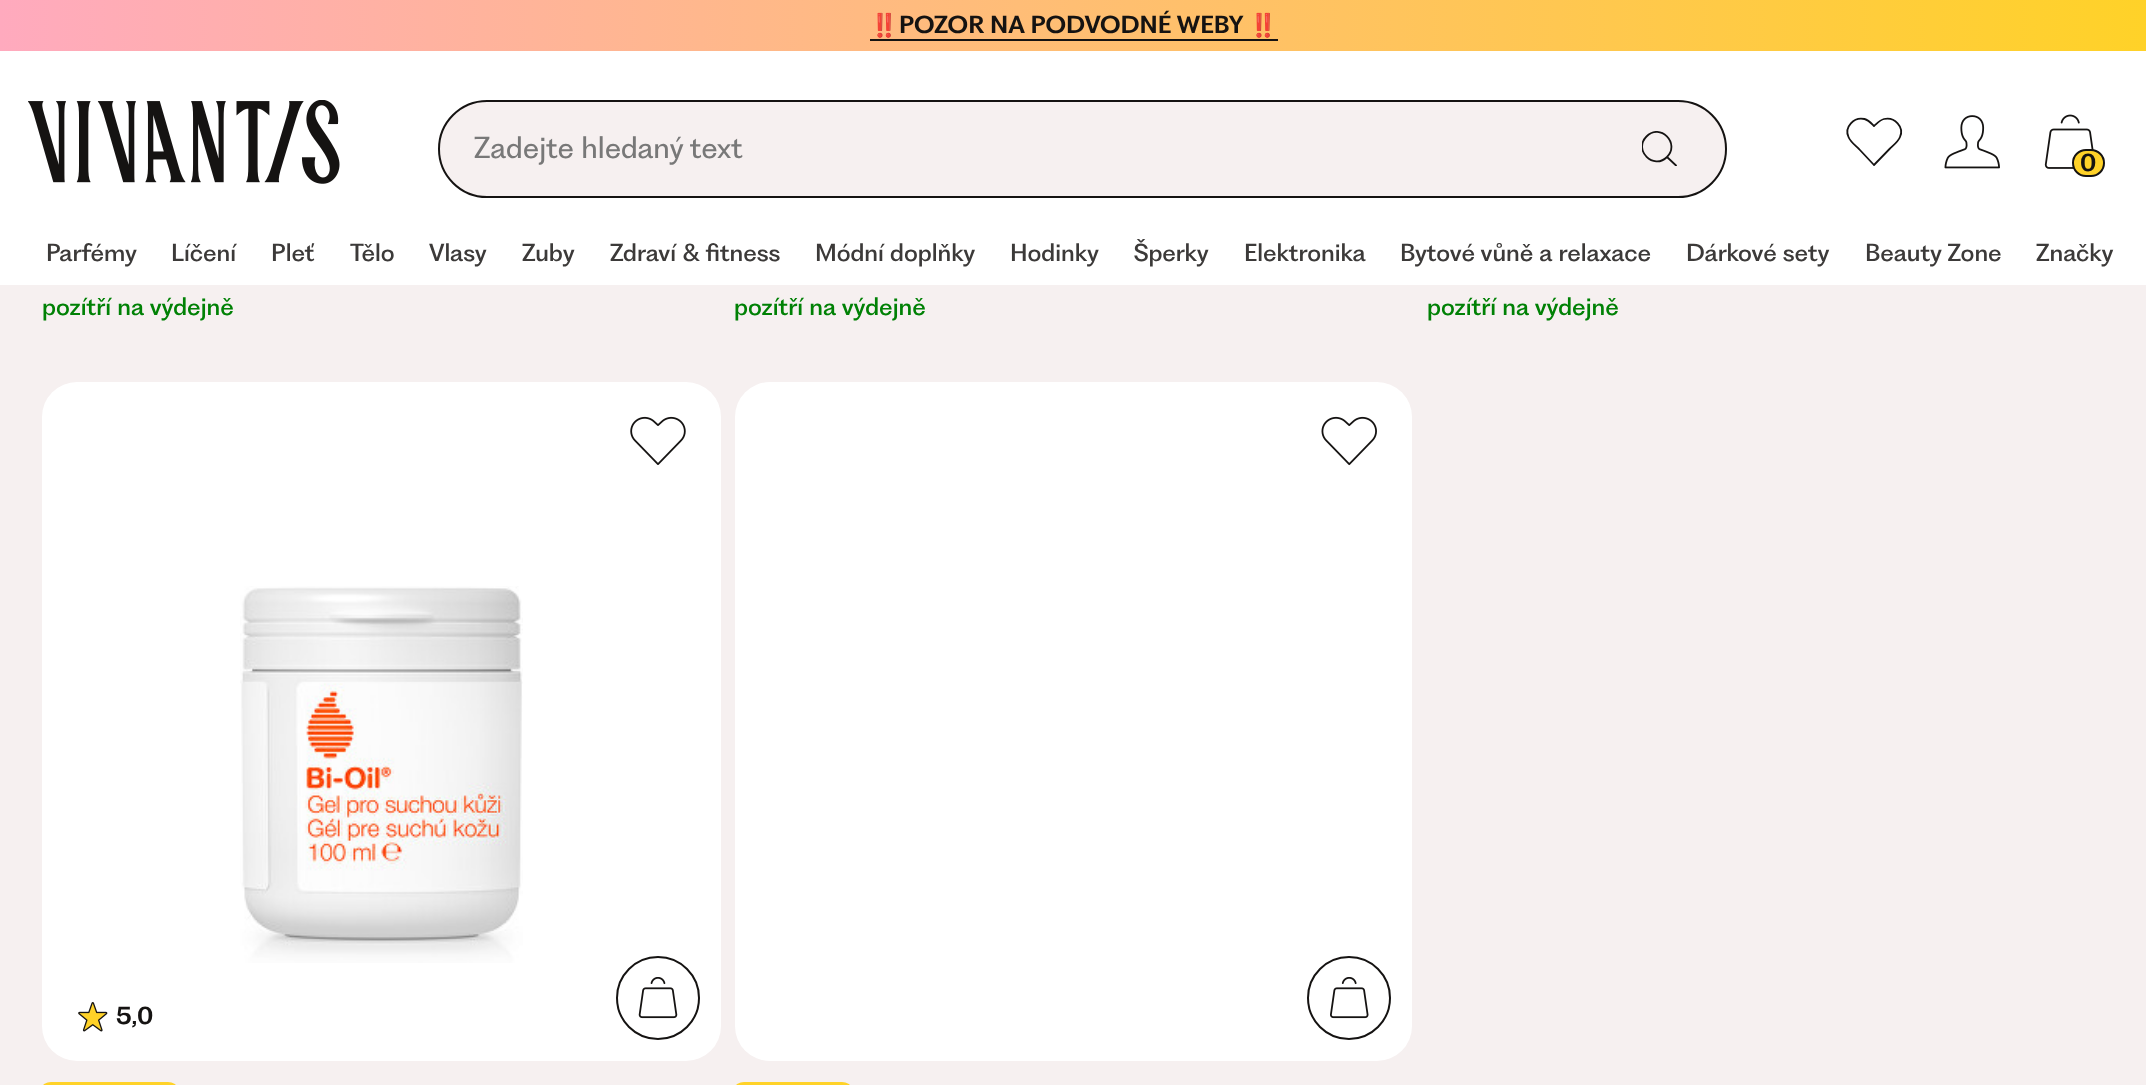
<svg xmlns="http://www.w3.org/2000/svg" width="2146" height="1085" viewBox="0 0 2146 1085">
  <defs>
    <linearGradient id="g1" gradientUnits="userSpaceOnUse" x1="0" y1="25" x2="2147" y2="25"><stop offset="0" stop-color="#ffaabe"/><stop offset="1" stop-color="#ffd228"/></linearGradient>
    <clipPath id="clip1"><path d="M1642 131h35v35H1642z"/></clipPath>
  </defs>
  <rect width="100%" height="100%" fill="#f6f0f0"/>
  <path d="M0 0h2146v51H0z" fill="url(#g1)"/>
  <path d="M870 39h408v2H870z" fill="#151312"/>
  <path d="M0 51h2146v234H0z" fill="#fff"/>
  <image x="28" y="100" width="312" height="84" href="img/1.png"/>
  <rect x="439" y="101" width="1287" height="96" rx="48" fill="#f6f0f0" stroke="#151312" stroke-width="2"/>
  <g clip-path="url(#clip1)">
    <path d="M1667 157C1653.5 170.5 1633 150 1646.5 136.5C1660 122.5 1680.5 143.5 1667 157ZM1667 157L1676 165.5" fill="none" stroke="#151312" stroke-width="1.8" stroke-linecap="round" stroke-linejoin="round"/>
  </g>
  <path d="M1874 165L1859 149C1855.5 145.5 1850.5 142 1848.5 137C1844 127 1854 116.5 1864.5 119C1868.5 120 1871 123 1874 126C1877.5 123 1880 120 1884 119C1894.5 116.5 1904.5 127 1900 137C1898 142 1893 145.5 1889.5 149Z" fill="none" stroke="#151312" stroke-width="1.8" stroke-linecap="round" stroke-linejoin="round"/>
  <image x="1944" y="115" width="56" height="54" href="img/2.png"/>
  <image x="2044" y="114" width="50" height="55" href="img/3.png"/>
  <rect x="2073" y="150" width="31" height="26" rx="13" fill="#ffd228" stroke="#151312" stroke-width="2"/>
  <rect x="42" y="382" width="679" height="679" rx="35" fill="#fff"/>
  <image x="630" y="416" width="56" height="49" href="img/4.png"/>
  <image x="240" y="586" width="283" height="377" href="img/5.png"/>
  <image x="78" y="1002" width="30" height="30" href="img/6.png"/>
  <circle cx="658" cy="998" r="41" fill="none" stroke="#151312" stroke-width="2"/>
  <image x="638" y="977" width="40" height="42" href="img/7.png"/>
  <rect x="42" y="1082" width="135" height="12" rx="9" fill="#ffd228"/>
  <rect x="735" y="382" width="677" height="679" rx="35" fill="#fff"/>
  <image x="1321" y="416" width="56" height="50" href="img/8.png"/>
  <circle cx="1349" cy="998" r="41" fill="none" stroke="#151312" stroke-width="2"/>
  <image x="1330" y="977" width="39" height="42" href="img/9.png"/>
  <rect x="735" y="1082" width="116" height="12" rx="9" fill="#ffd228"/>
  <text x="870" y="33" font-family="Noto Color Emoji" font-size="22.75" font-weight="bold" fill="#151312">‼️</text>
  <text x="899" y="33" font-family="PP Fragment" font-size="22.75" font-weight="600" fill="#151312">POZOR NA PODVODNÉ WEBY</text>
  <text x="1249" y="33" font-family="Noto Color Emoji" font-size="22.75" font-weight="bold" fill="#151312">‼️</text>
  <text x="474" y="158" font-family="PP Fragment" font-size="28" fill="#787878">Zadejte hledaný text</text>
  <text x="2080" y="171" font-family="PP Fragment" font-size="22.75" font-weight="600" fill="#151312">0</text>
  <g font-family="PP Fragment" font-size="22.75" font-weight="500" fill="#3c3a39">
    <text x="46" y="261">Parfémy</text>
    <text x="171" y="261">Líčení</text>
    <text x="271" y="261">Pleť</text>
    <text x="350" y="261">Tělo</text>
    <text x="429" y="261">Vlasy</text>
    <text x="522" y="261">Zuby</text>
    <text x="610" y="261">Zdraví &amp; fitness</text>
    <text x="815" y="261">Módní doplňky</text>
    <text x="1010" y="261">Hodinky</text>
    <text x="1134" y="261">Šperky</text>
    <text x="1244" y="261">Elektronika</text>
    <text x="1400" y="261">Bytové vůně a relaxace</text>
    <text x="1686" y="261">Dárkové sety</text>
    <text x="1865" y="261">Beauty Zone</text>
    <text x="2036" y="261">Značky</text>
  </g>
  <g font-family="PP Fragment" font-size="22.75" font-weight="500" fill="#008105">
    <text x="42" y="315">pozítří na výdejně</text>
    <text x="734" y="315">pozítří na výdejně</text>
    <text x="1427" y="315">pozítří na výdejně</text>
  </g>
  <text x="116" y="1024" font-family="PP Fragment" font-size="22.75" font-weight="600" fill="#151312">5,0</text>
</svg>
